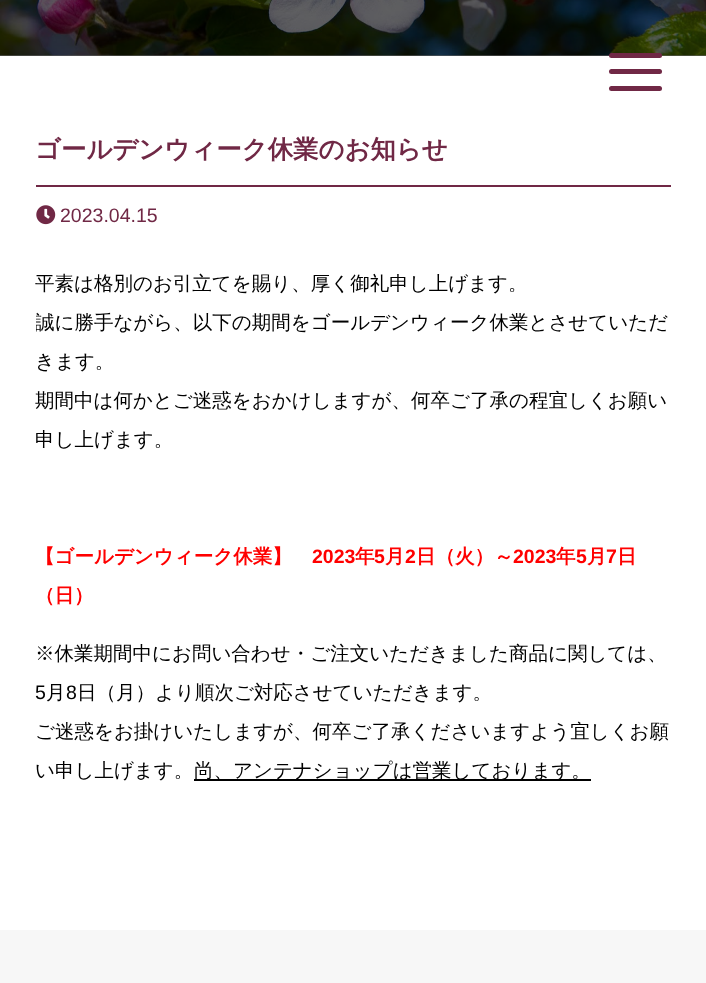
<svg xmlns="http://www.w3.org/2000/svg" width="706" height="983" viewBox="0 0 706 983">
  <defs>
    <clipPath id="clip1"><path d="M36 245h635v565H36z"/></clipPath>
  </defs>
  <rect width="100%" height="100%" fill="#fff"/>
  <path d="M0 55h706v1H0z" fill="#636363"/>
  <image x="0" y="0" width="706" height="56" href="img/1.png"/>
  <rect x="609" y="53" width="53" height="5" rx="2.5" fill="#702845"/>
  <rect x="609" y="69" width="53" height="5" rx="2.5" fill="#702845"/>
  <rect x="609" y="86" width="53" height="5" rx="2.5" fill="#702845"/>
  <path d="M36 185h635v2H36z" fill="#702845"/>
  <image x="36" y="205" width="20" height="20" href="img/2.png"/>
  <path d="M194 779h397v2H194z" fill="#000"/>
  <path d="M0 930h706v53H0z" fill="#f7f7f7"/>
  <text x="35" y="158" font-family="WenQuanYi Zen Hei" font-size="25.4" font-weight="bold" fill="#702845">ゴールデンウィーク休業のお知らせ</text>
  <text x="60" y="222" font-family="Liberation Sans" font-size="19.5" fill="#702845">2023.04.15</text>
  <text x="35" y="290" font-family="WenQuanYi Zen Hei" font-size="19.5" font-weight="500" fill="#000">平素は格別のお引立てを賜り、厚く御礼申し上げます。</text>
  <g clip-path="url(#clip1)">
    <text x="35" y="329" font-family="WenQuanYi Zen Hei" font-size="19.5" font-weight="500" fill="#000">誠に勝手ながら、以下の期間をゴールデンウィーク休業とさせていただ</text>
  </g>
  <g font-family="WenQuanYi Zen Hei" font-size="19.5" font-weight="500" fill="#000">
    <text x="35" y="368">きます。</text>
    <text x="35" y="407">期間中は何かとご迷惑をおかけしますが、何卒ご了承の程宜しくお願い</text>
    <text x="35" y="446">申し上げます。</text>
  </g>
  <text x="35" y="563" font-family="WenQuanYi Zen Hei" font-size="19.5" font-weight="bold" fill="#f00">【ゴールデンウィーク休業】</text>
  <text x="312" y="563" font-family="Liberation Sans" font-size="19.5" font-weight="bold" fill="#f00">2023</text>
  <text x="355" y="563" font-family="WenQuanYi Zen Hei" font-size="19.5" font-weight="bold" fill="#f00">年</text>
  <text x="374" y="563" font-family="Liberation Sans" font-size="19.5" font-weight="bold" fill="#f00">5</text>
  <text x="385" y="563" font-family="WenQuanYi Zen Hei" font-size="19.5" font-weight="bold" fill="#f00">月</text>
  <text x="405" y="563" font-family="Liberation Sans" font-size="19.5" font-weight="bold" fill="#f00">2</text>
  <text x="416" y="563" font-family="WenQuanYi Zen Hei" font-size="19.5" font-weight="bold" fill="#f00">日（火）～</text>
  <text x="513" y="563" font-family="Liberation Sans" font-size="19.5" font-weight="bold" fill="#f00">2023</text>
  <text x="556" y="563" font-family="WenQuanYi Zen Hei" font-size="19.5" font-weight="bold" fill="#f00">年</text>
  <text x="576" y="563" font-family="Liberation Sans" font-size="19.5" font-weight="bold" fill="#f00">5</text>
  <text x="587" y="563" font-family="WenQuanYi Zen Hei" font-size="19.5" font-weight="bold" fill="#f00">月</text>
  <text x="606" y="563" font-family="Liberation Sans" font-size="19.5" font-weight="bold" fill="#f00">7</text>
  <g font-family="WenQuanYi Zen Hei" font-size="19.5" font-weight="bold" fill="#f00">
    <text x="617" y="563">日</text>
    <text x="35" y="602">（日）</text>
  </g>
  <text x="35" y="660" font-family="WenQuanYi Zen Hei" font-size="19.5" font-weight="500" fill="#000">※休業期間中にお問い合わせ・ご注文いただきました商品に関しては、</text>
  <text x="35" y="699" font-family="Liberation Sans" font-size="19.5" fill="#000">5</text>
  <text x="46" y="699" font-family="WenQuanYi Zen Hei" font-size="19.5" font-weight="500" fill="#000">月</text>
  <text x="66" y="699" font-family="Liberation Sans" font-size="19.5" fill="#000">8</text>
  <g font-family="WenQuanYi Zen Hei" font-size="19.5" font-weight="500" fill="#000">
    <text x="77" y="699">日（月）より順次ご対応させていただきます。</text>
    <text x="35" y="738">ご迷惑をお掛けいたしますが、何卒ご了承くださいますよう宜しくお願</text>
    <text x="35" y="777">い申し上げます。</text>
    <text x="194" y="777">尚、アンテナショップは営業しております。</text>
  </g>
</svg>
